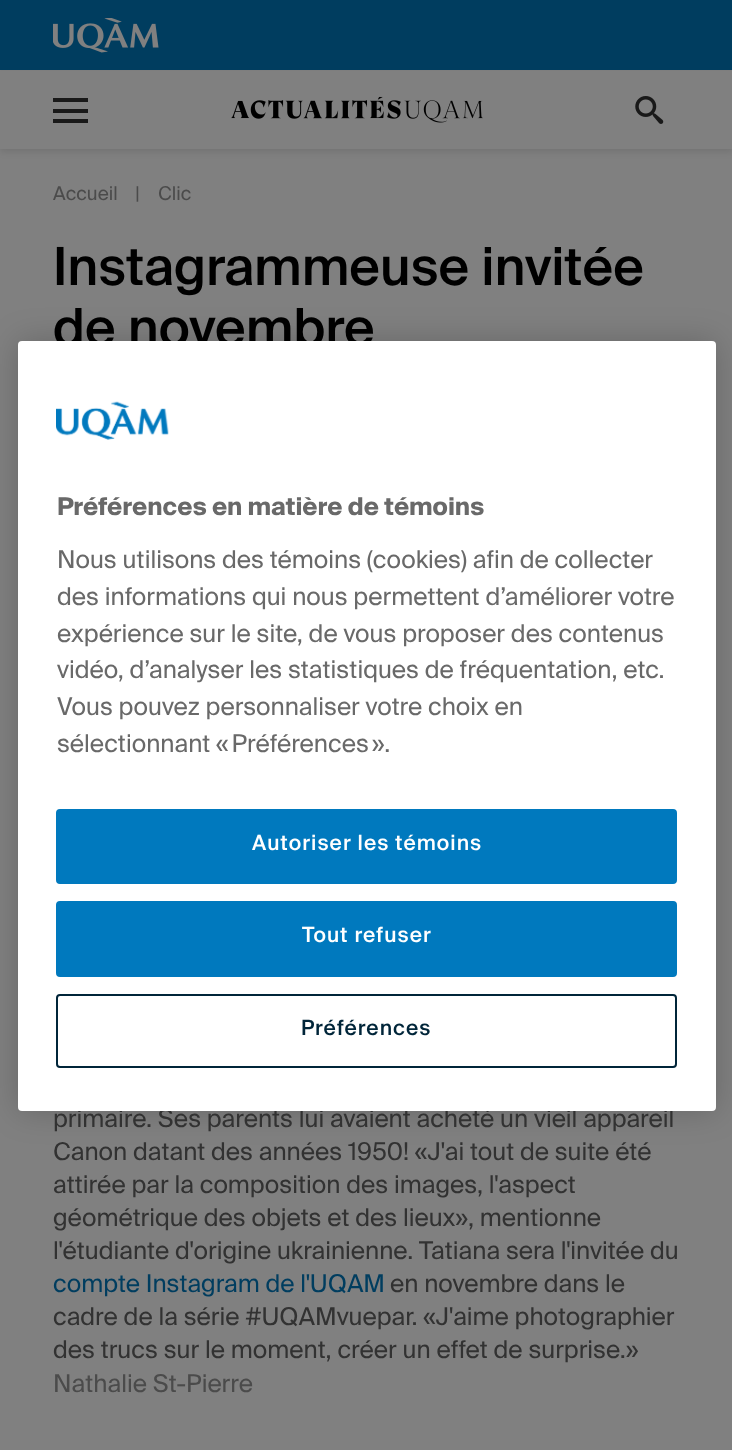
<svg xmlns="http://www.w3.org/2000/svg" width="732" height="1450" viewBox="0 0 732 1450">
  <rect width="100%" height="100%" fill="#808080"/>
  <path d="M0 74h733v78H0z" fill="#0000001a" filter="blur(3.5px)"/>
  <path d="M0 0h732v70H0z" fill="#003d5f"/>
  <image x="53" y="18" width="106" height="35" href="img/1.png"/>
  <path d="M0 71h732v78H0z" fill="#808080"/>
  <path d="M53 109h35v4H53z" fill="#191919"/>
  <path d="M53 98h35v4H53z" fill="#191919"/>
  <path d="M53 119h35v4H53z" fill="#191919"/>
  <image x="231" y="96" width="252" height="27" href="img/2.png"/>
  <image x="635" y="96" width="29" height="28" href="img/3.png"/>
  <rect x="18" y="341" width="698" height="770" rx="4" fill="#00000033" filter="blur(16px)"/>
  <g font-family="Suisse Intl" font-size="19" fill="#4b4b4b">
    <text x="53" y="200">Accueil</text>
    <text x="135" y="200">|</text>
    <text x="158" y="200">Clic</text>
  </g>
  <g font-family="Suisse Intl" font-size="52.5" font-weight="500" fill="#000">
    <text x="53" y="285">Instagrammeuse invitée</text>
    <text x="53" y="346">de novembre</text>
  </g>
  <g font-family="Suisse Intl" font-size="24.5" fill="#323232">
    <text x="53" y="1127">primaire. Ses parents lui avaient acheté un vieil appareil</text>
    <text x="53" y="1160">Canon datant des années 1950! «J'ai tout de suite été</text>
    <text x="53" y="1193">attirée par la composition des images, l'aspect</text>
    <text x="53" y="1226">géométrique des objets et des lieux», mentionne</text>
    <text x="53" y="1259">l'étudiante d'origine ukrainienne. Tatiana sera l'invitée du</text>
  </g>
  <text x="53" y="1292" font-family="Suisse Intl" font-size="24.5" fill="#003d5f">compte Instagram de l'UQAM</text>
  <g font-family="Suisse Intl" font-size="24.5" fill="#323232">
    <text x="390" y="1292">en novembre dans le</text>
    <text x="53" y="1325">cadre de la série #UQAMvuepar. «J'aime photographier</text>
    <text x="53" y="1358">des trucs sur le moment, créer un effet de surprise.»</text>
  </g>
  <text x="53" y="1392" font-family="Suisse Intl" font-size="24.5" fill="#4b4b4b">Nathalie St-Pierre</text>
  <rect x="18" y="341" width="698" height="770" rx="4" fill="#fff"/>
  <image x="56" y="401" width="113" height="39" href="img/4.png"/>
  <text x="57" y="515" font-family="Suisse Intl" font-size="24.5" font-weight="bold" fill="#696969">Préférences en matière de témoins</text>
  <g font-family="Suisse Intl" font-size="24.5" fill="#696969">
    <text x="57" y="568">Nous utilisons des témoins (cookies) afin de collecter</text>
    <text x="57" y="605">des informations qui nous permettent d’améliorer votre</text>
    <text x="57" y="642">expérience sur le site, de vous proposer des contenus</text>
    <text x="57" y="678">vidéo, d’analyser les statistiques de fréquentation, etc.</text>
    <text x="57" y="715">Vous pouvez personnaliser votre choix en</text>
    <text x="57" y="752">sélectionnant « Préférences ».</text>
  </g>
  <rect x="57" y="810" width="619" height="73" rx="3" fill="#0079be" stroke="#0079be" stroke-width="2"/>
  <text x="252" y="850" font-family="Suisse Intl" font-size="21" font-weight="500" letter-spacing="1.05" fill="#fff">Autoriser les témoins</text>
  <rect x="57" y="902" width="619" height="74" rx="3" fill="#0079be" stroke="#0079be" stroke-width="2"/>
  <text x="302" y="942" font-family="Suisse Intl" font-size="21" font-weight="500" letter-spacing="1.05" fill="#fff">Tout refuser</text>
  <rect x="57" y="995" width="619" height="72" rx="3" fill="none" stroke="#002539" stroke-width="2"/>
  <text x="301" y="1035" font-family="Suisse Intl" font-size="21" font-weight="500" letter-spacing="1.05" fill="#002539">Préférences</text>
</svg>
